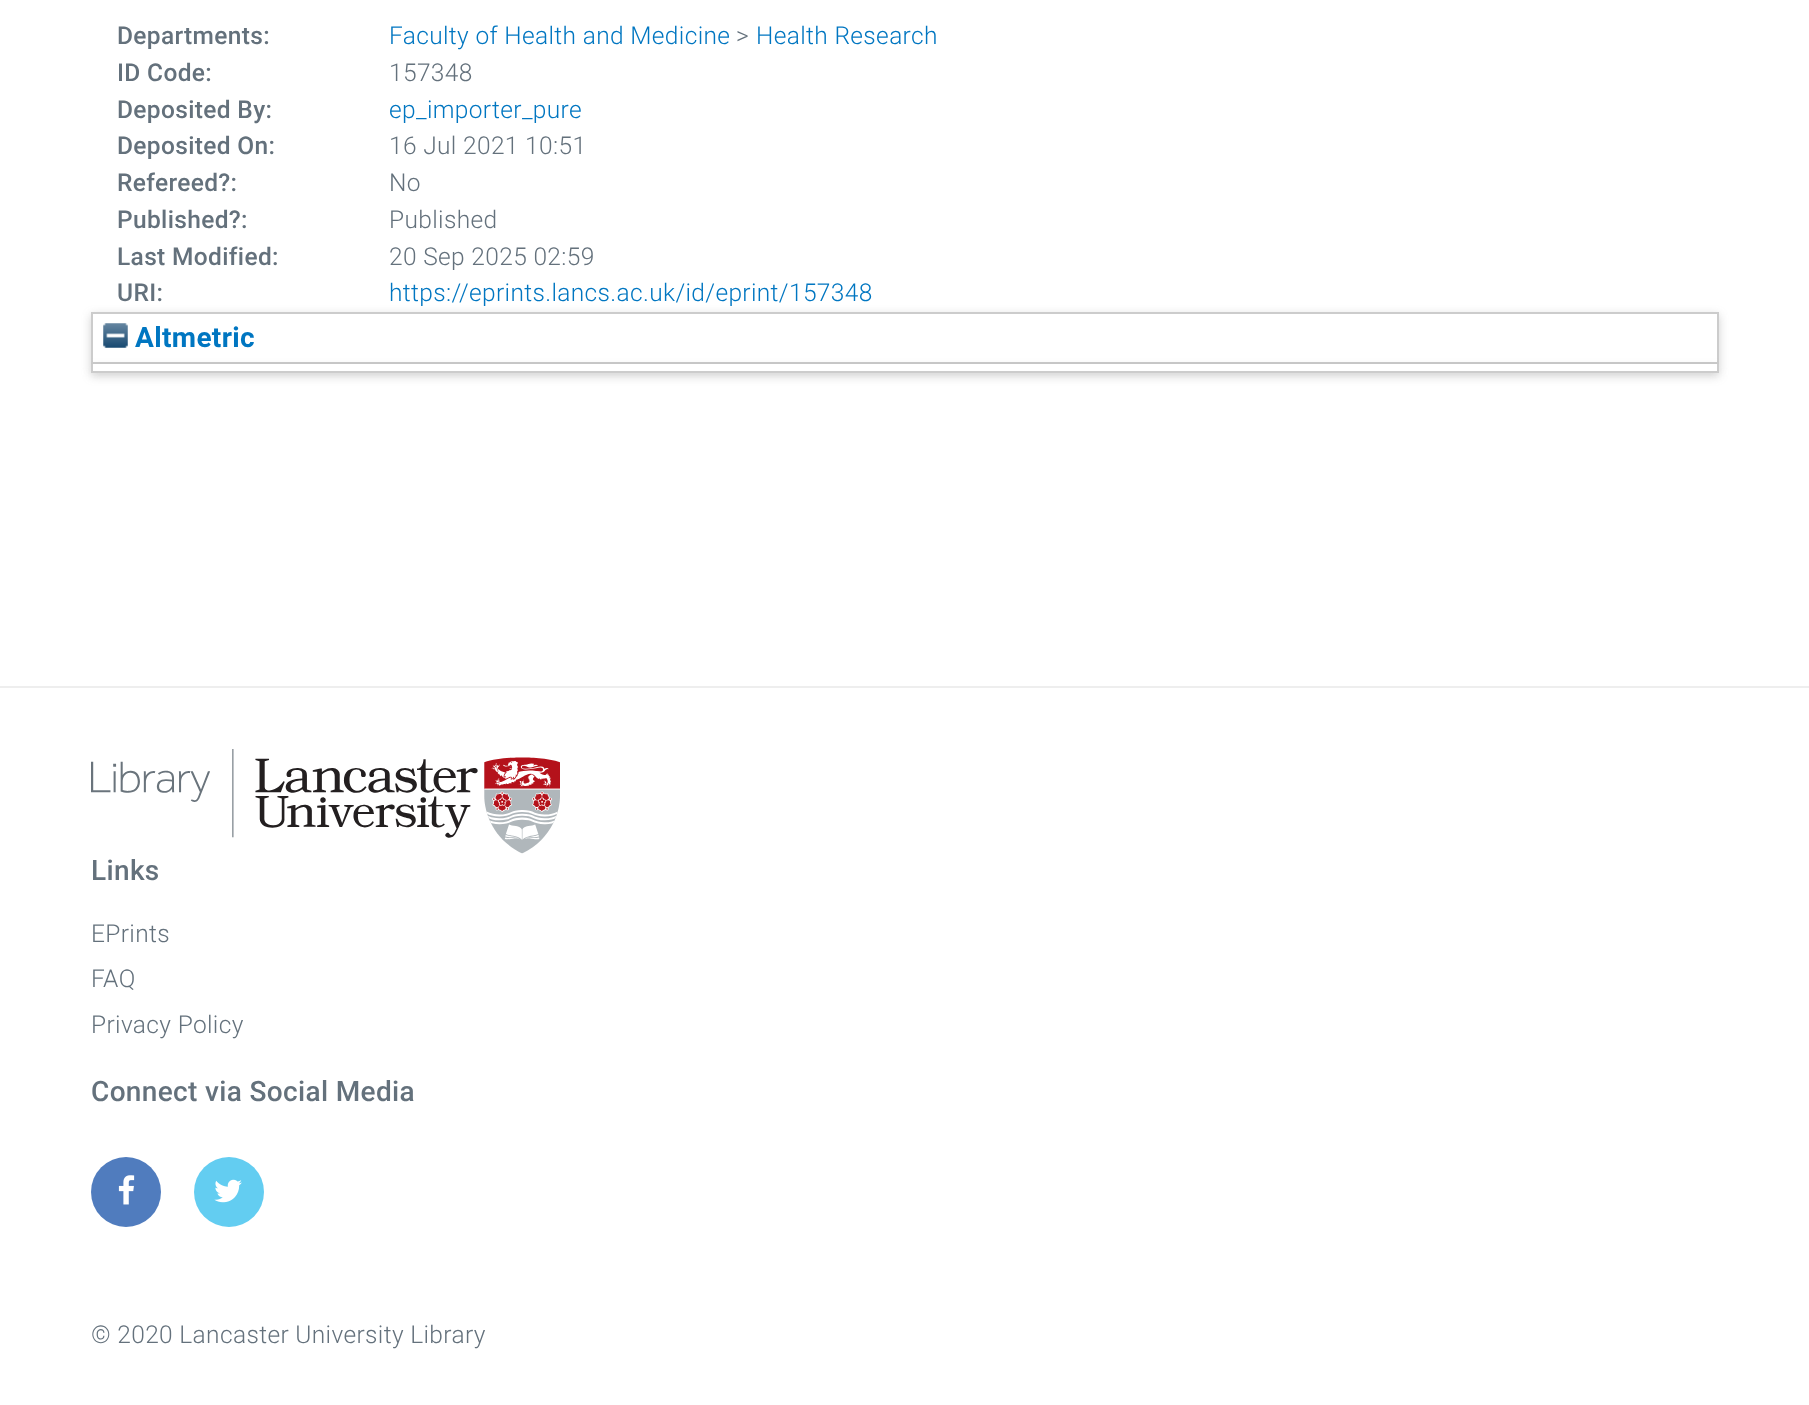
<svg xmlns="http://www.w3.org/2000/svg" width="1809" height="1405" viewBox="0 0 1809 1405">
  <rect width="100%" height="100%" fill="#fff"/>
  <path d="M91 315h1628v53H91z" fill="#6464644d" filter="blur(5px)"/>
  <path d="M92 313h1626v50H92z" fill="#fff" stroke="#ccc" stroke-width="2"/>
  <image x="103" y="323" width="25" height="25" href="img/1.png"/>
  <path d="M91 368h1628v8H91z" fill="#6464644d" filter="blur(5px)"/>
  <path d="M93 364h1624v7H93z" fill="#fff"/>
  <path d="M1717 364h2v9H1717z" fill="#ccc"/>
  <path d="M91 371h1628v2H91z" fill="#ccc"/>
  <path d="M91 364h2v9H91z" fill="#ccc"/>
  <path d="M0 686h1809v2H0z" fill="#eee"/>
  <image x="91" y="749" width="469" height="105" href="img/2.png"/>
  <circle cx="126" cy="1192" r="35" fill="#507cbe"/>
  <image x="118" y="1175" width="17" height="30" href="img/3.png"/>
  <circle cx="229" cy="1192" r="35" fill="#63cdf1"/>
  <image x="214" y="1179" width="28" height="24" href="img/4.png"/>
  <text x="117" y="44" font-family="Roboto" font-size="24.5" font-weight="500" letter-spacing="0.35" fill="#64717c">Departments:</text>
  <text x="389" y="44" font-family="Roboto" font-size="24.5" font-weight="300" letter-spacing="0.35" fill="#0076c1">Faculty of Health and Medicine</text>
  <text x="736" y="44" font-family="Roboto" font-size="24.5" font-weight="300" letter-spacing="0.35" fill="#64717c">&gt;</text>
  <text x="756" y="44" font-family="Roboto" font-size="24.5" font-weight="300" letter-spacing="0.35" fill="#0076c1">Health Research</text>
  <text x="117" y="81" font-family="Roboto" font-size="24.5" font-weight="500" letter-spacing="0.35" fill="#64717c">ID Code:</text>
  <text x="389" y="81" font-family="Roboto" font-size="24.5" font-weight="300" letter-spacing="0.35" fill="#64717c">157348</text>
  <text x="117" y="118" font-family="Roboto" font-size="24.5" font-weight="500" letter-spacing="0.35" fill="#64717c">Deposited By:</text>
  <text x="389" y="118" font-family="Roboto" font-size="24.5" font-weight="300" letter-spacing="0.35" fill="#0076c1">ep_importer_pure</text>
  <text x="117" y="154" font-family="Roboto" font-size="24.5" font-weight="500" letter-spacing="0.35" fill="#64717c">Deposited On:</text>
  <text x="389" y="154" font-family="Roboto" font-size="24.5" font-weight="300" letter-spacing="0.35" fill="#64717c">16 Jul 2021 10:51</text>
  <text x="117" y="191" font-family="Roboto" font-size="24.5" font-weight="500" letter-spacing="0.35" fill="#64717c">Refereed?:</text>
  <text x="389" y="191" font-family="Roboto" font-size="24.5" font-weight="300" letter-spacing="0.35" fill="#64717c">No</text>
  <text x="117" y="228" font-family="Roboto" font-size="24.5" font-weight="500" letter-spacing="0.35" fill="#64717c">Published?:</text>
  <text x="389" y="228" font-family="Roboto" font-size="24.5" font-weight="300" letter-spacing="0.35" fill="#64717c">Published</text>
  <text x="117" y="265" font-family="Roboto" font-size="24.5" font-weight="500" letter-spacing="0.35" fill="#64717c">Last Modified:</text>
  <text x="389" y="265" font-family="Roboto" font-size="24.5" font-weight="300" letter-spacing="0.35" fill="#64717c">20 Sep 2025 02:59</text>
  <text x="117" y="301" font-family="Roboto" font-size="24.5" font-weight="500" letter-spacing="0.35" fill="#64717c">URI:</text>
  <text x="389" y="301" font-family="Roboto" font-size="24.5" font-weight="300" letter-spacing="0.35" fill="#0076c1">https://eprints.lancs.ac.uk/id/eprint/157348</text>
  <text x="135" y="347" font-family="Roboto" font-size="28" font-weight="bold" letter-spacing="0.35" fill="#0076c1">Altmetric</text>
  <text x="91" y="880" font-family="Roboto" font-size="28" font-weight="500" letter-spacing="0.35" fill="#64717c">Links</text>
  <g font-family="Roboto" font-size="24.5" font-weight="300" letter-spacing="0.35" fill="#64717c">
    <text x="91" y="942">EPrints</text>
    <text x="91" y="987">FAQ</text>
    <text x="91" y="1033">Privacy Policy</text>
  </g>
  <text x="91" y="1101" font-family="Roboto" font-size="28" font-weight="500" letter-spacing="0.35" fill="#64717c">Connect via Social Media</text>
  <text x="91" y="1343" font-family="Roboto" font-size="24.5" font-weight="300" letter-spacing="0.35" fill="#64717c">© 2020 Lancaster University Library</text>
</svg>
